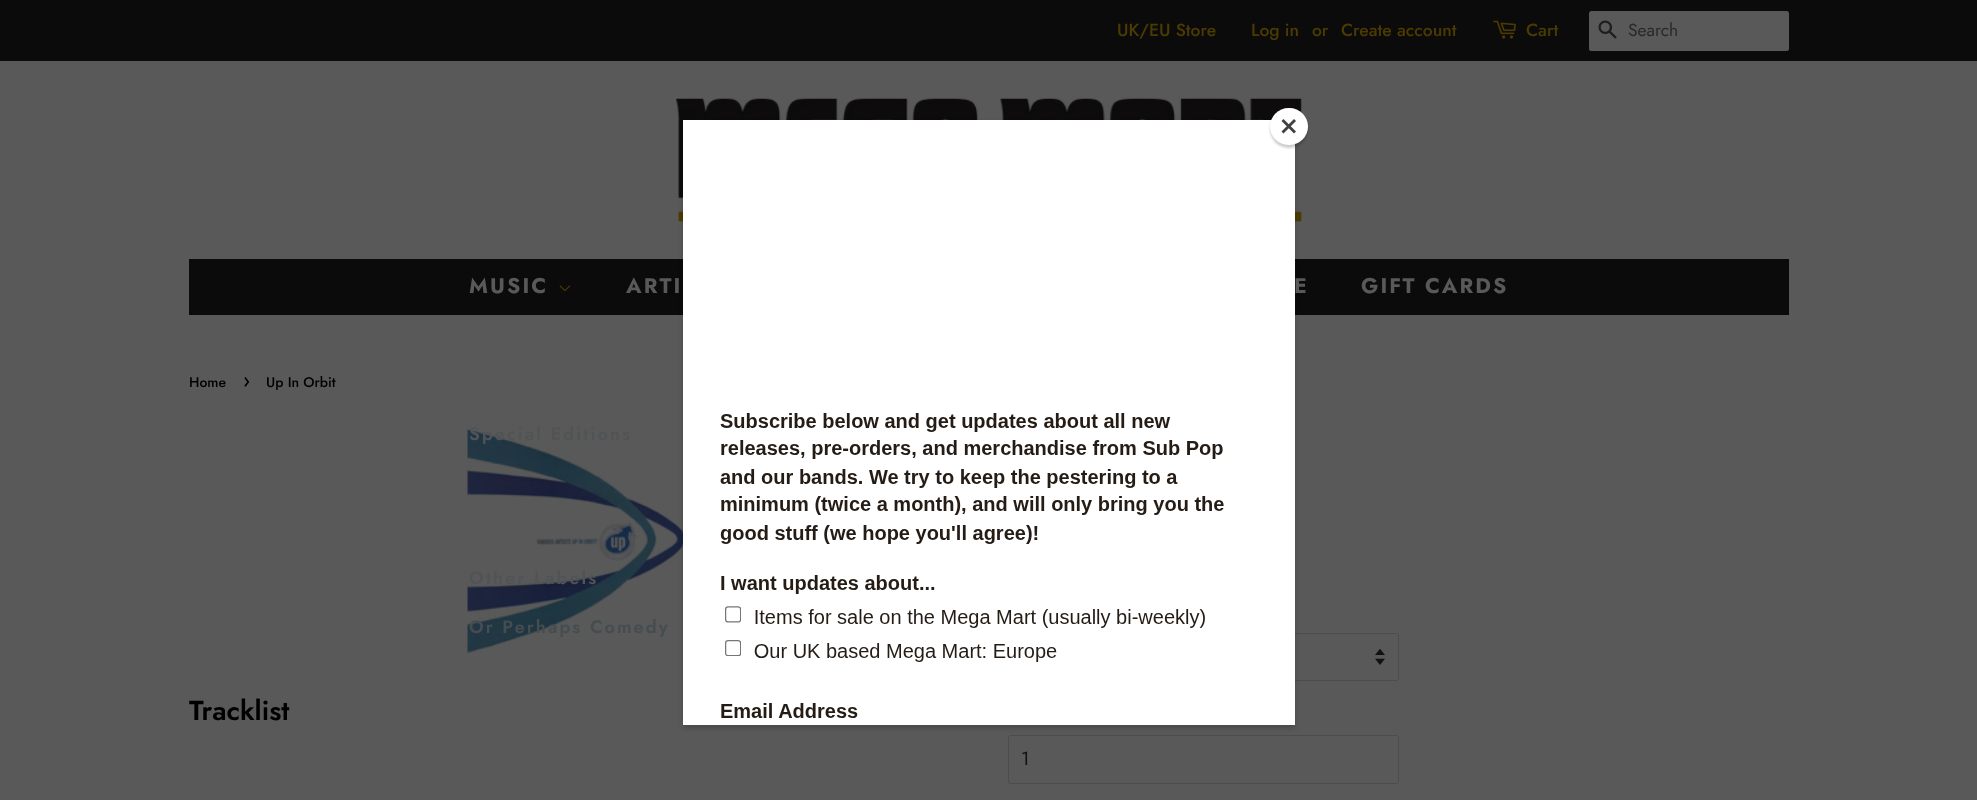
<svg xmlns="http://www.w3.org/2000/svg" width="1977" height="800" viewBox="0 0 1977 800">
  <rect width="100%" height="100%" fill="#595959"/>
  <path d="M0 0h1977v61H0z" fill="#0c0b0b"/>
  <image x="1493" y="20" width="23" height="19" href="img/1.png"/>
  <rect x="1589" y="11" width="200" height="40" rx="2.5" fill="#595959"/>
  <image x="1598" y="20" width="19" height="19" href="img/2.png"/>
  <image x="676" y="98" width="626" height="124" href="img/3.png"/>
  <path d="M189 259h1600v56H189z" fill="#0c0b0b"/>
  <image x="559" y="285" width="12" height="7" href="img/4.png"/>
  <image x="467" y="428" width="216" height="226" href="img/6.png"/>
  <image x="1375" y="649" width="10" height="16" href="img/7.png"/>
  <rect x="1008.5" y="633.5" width="390" height="47" rx="2" fill="none" stroke="#4c4c4c"/>
  <rect x="1008.5" y="735.5" width="390" height="48" rx="2" fill="none" stroke="#4c4c4c"/>
  <path d="M683 123h612v605H683z" fill="#00000033" filter="blur(2.5px)"/>
  <image x="683" y="120" width="612" height="605" href="img/5.png"/>
  <rect x="1270" y="110" width="38" height="38" rx="19" fill="#00000033" filter="blur(1px)"/>
  <rect x="1270" y="108" width="38" height="37" rx="18.5" fill="#fff"/>
  <path d="M1294 119L1296 121L1283.5 133.5L1281.5 131.5Z" fill="#414141"/>
  <path d="M1281.5 121L1283.5 119L1296 131.5L1294 133.5Z" fill="#414141"/>
  <g font-family="Jost" font-size="17.5" font-weight="500" fill="#4c3b00">
    <text x="1117" y="36">UK/EU Store</text>
    <text x="1251" y="36">Log in</text>
    <text x="1312" y="36">or</text>
    <text x="1341" y="36">Create account</text>
    <text x="1526" y="36">Cart</text>
  </g>
  <text x="1628" y="36" font-family="Jost" font-size="17.5" fill="#292929">Search</text>
  <text x="469" y="293" font-family="Jost" font-size="21.25" font-weight="bold" letter-spacing="2.1" fill="#595959">MUSIC</text>
  <g font-family="Jost" font-size="18" font-weight="600" letter-spacing="2.1" fill="#515456">
    <text x="469" y="440">Special Editions</text>
    <text x="469" y="584">Other Labels</text>
  </g>
  <text x="469" y="633" font-family="Jost" font-size="18" font-weight="600" letter-spacing="2.1" fill="#454d51">Or Perhaps Comedy</text>
  <g font-family="Jost" font-size="21.25" font-weight="bold" letter-spacing="2.1" fill="#595959">
    <text x="626" y="293">ARTI</text>
    <text x="1294" y="293">E</text>
    <text x="1361" y="293">GIFT CARDS</text>
  </g>
  <text x="189" y="387" font-family="Jost" font-size="14" font-weight="500" fill="#000">Home</text>
  <text x="243" y="387" font-family="Jost" font-size="20" font-weight="500" fill="#000">›</text>
  <text x="266" y="387" font-family="Jost" font-size="14" font-weight="500" fill="#000">Up In Orbit</text>
  <text x="189" y="720" font-family="Jost" font-size="27.5" font-weight="600" fill="#000">Tracklist</text>
  <text x="1021" y="765" font-family="Jost" font-size="19" fill="#121212">1</text>
</svg>
